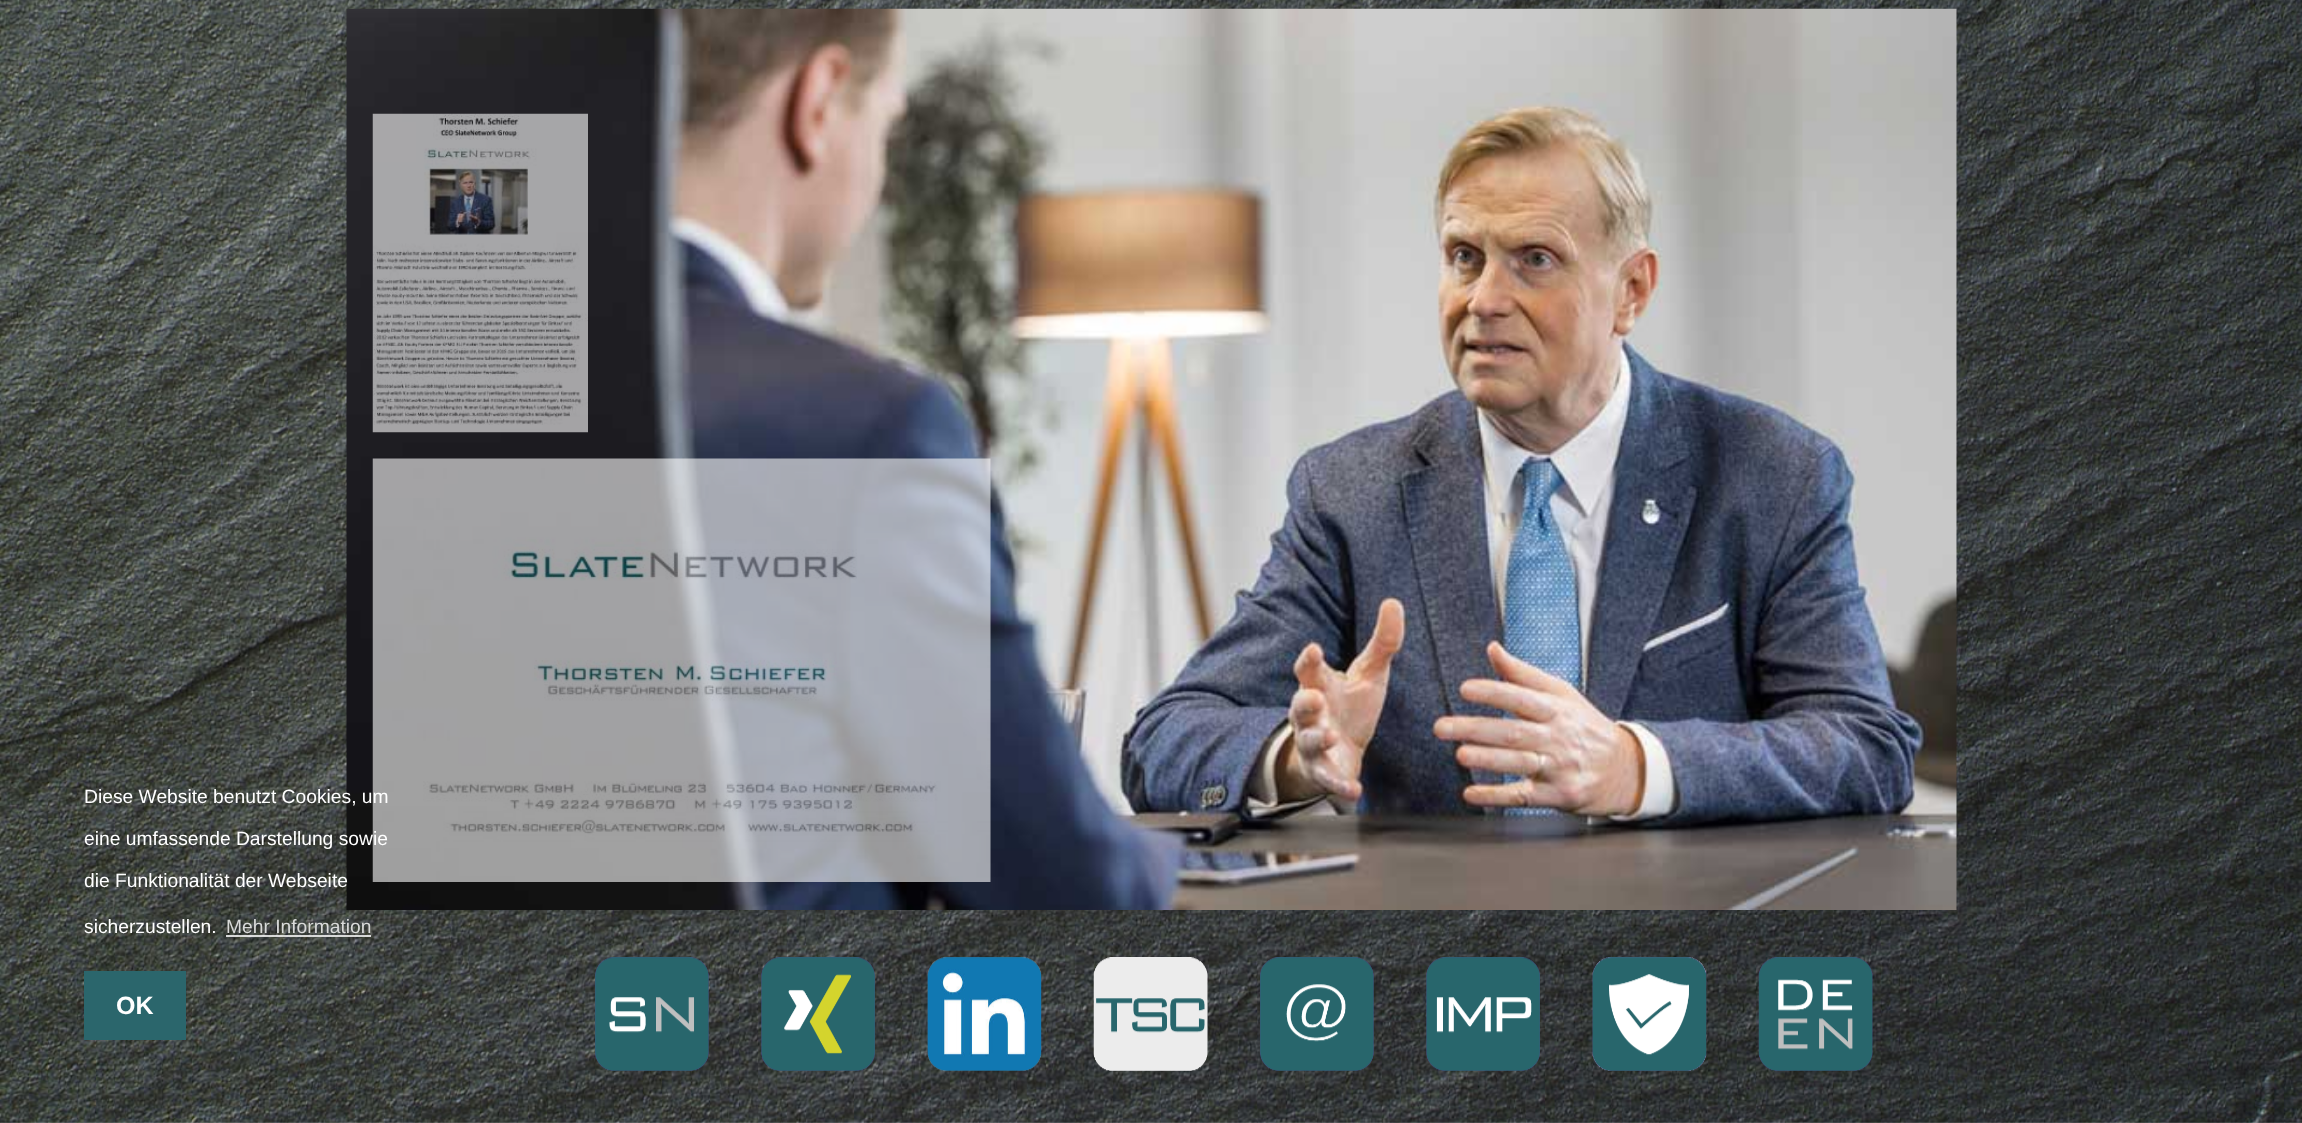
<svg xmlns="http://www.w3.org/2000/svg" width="2302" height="1123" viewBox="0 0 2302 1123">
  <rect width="100%" height="100%" fill="#fff"/>
  <image x="0" y="0" width="2302" height="1123" href="img/1.png"/>
  <path d="M226 935h145v2H226z" fill="#ffffffcc"/>
  <path d="M84 971h102v69H84z" fill="#2b666c"/>
  <image x="346" y="8" width="1611" height="902" href="img/2.png"/>
  <image x="372" y="113" width="216" height="320" href="img/3.png"/>
  <image x="372" y="458" width="619" height="424" href="img/4.png"/>
  <image x="595" y="957" width="114" height="114" href="img/5.png"/>
  <image x="761" y="957" width="114" height="114" href="img/6.png"/>
  <image x="927" y="957" width="115" height="114" href="img/7.png"/>
  <image x="1093" y="957" width="115" height="114" href="img/8.png"/>
  <image x="1260" y="957" width="114" height="114" href="img/9.png"/>
  <image x="1426" y="957" width="114" height="114" href="img/10.png"/>
  <image x="1592" y="957" width="115" height="114" href="img/11.png"/>
  <image x="1758" y="957" width="115" height="114" href="img/12.png"/>
  <g font-family="Liberation Sans" font-size="19.25" fill="#fff">
    <text x="84" y="803">Diese Website benutzt Cookies, um</text>
    <text x="84" y="845">eine umfassende Darstellung sowie</text>
    <text x="84" y="887">die Funktionalität der Webseite</text>
    <text x="84" y="933">sicherzustellen.</text>
  </g>
  <text x="226" y="933" font-family="Liberation Sans" font-size="19.25" fill="#d9dad9">Mehr Information</text>
  <text x="116" y="1014" font-family="Liberation Sans" font-size="25" font-weight="bold" fill="#fff">OK</text>
</svg>
